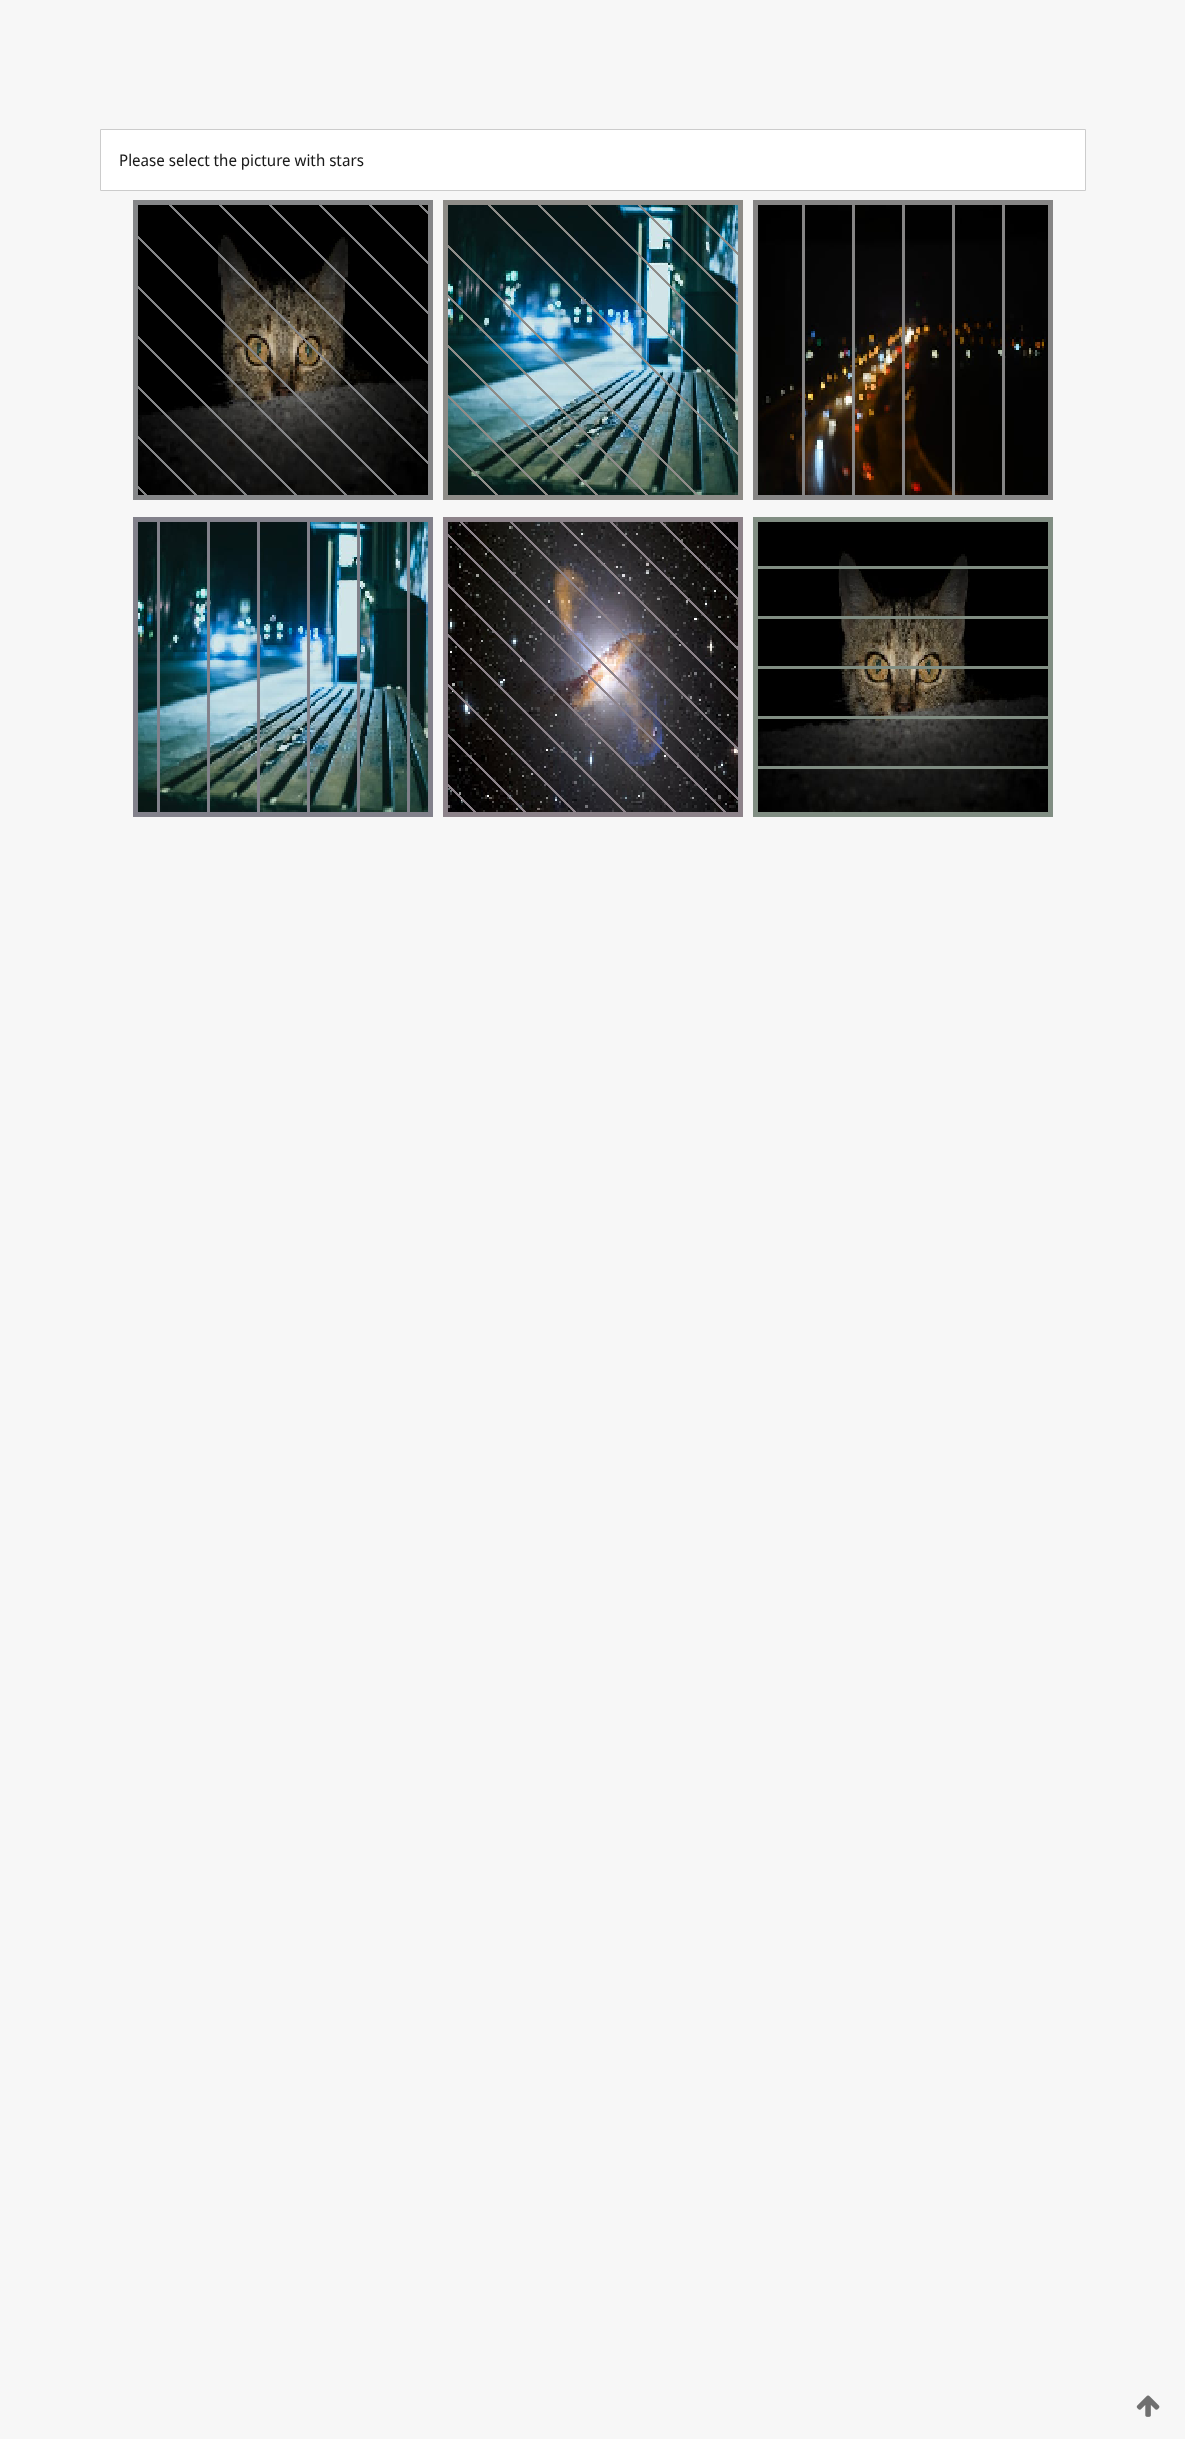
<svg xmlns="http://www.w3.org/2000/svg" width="1185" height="2439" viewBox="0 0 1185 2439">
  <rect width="100%" height="100%" fill="#f7f7f7"/>
  <path d="M100.5 129.5h985v61H100.5z" fill="#fff" stroke="#ccc"/>
  <image x="133" y="200" width="300" height="300" href="img/1.png"/>
  <image x="443" y="200" width="300" height="300" href="img/2.png"/>
  <image x="753" y="200" width="300" height="300" href="img/3.png"/>
  <image x="133" y="517" width="300" height="300" href="img/4.png"/>
  <image x="443" y="517" width="300" height="300" href="img/5.png"/>
  <image x="753" y="517" width="300" height="300" href="img/6.png"/>
  <image x="1136" y="2395" width="24" height="22" href="img/7.png"/>
  <text x="119" y="166" font-family="Noto Sans Display" font-size="16" fill="#1a1a1a">Please select the picture with stars</text>
</svg>
